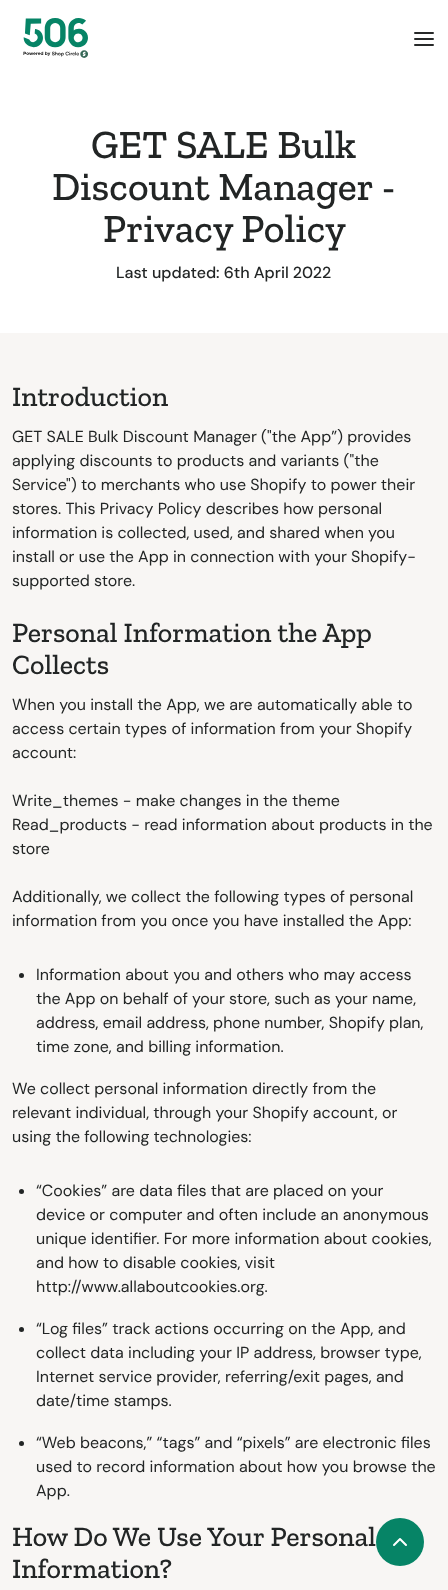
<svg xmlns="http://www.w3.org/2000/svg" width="448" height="1590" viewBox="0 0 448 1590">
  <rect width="100%" height="100%" fill="#fff"/>
  <image x="23" y="18" width="65" height="40" href="img/1.png"/>
  <path d="M415 39H433M415 33H433M415 45H433" fill="none" stroke="#272929" stroke-width="2" stroke-linecap="round" stroke-linejoin="round"/>
  <path d="M0 333h448v1257H0z" fill="#f8f6f4"/>
  <circle cx="21.5" cy="975.5" r="2.5" fill="#222525"/>
  <circle cx="21.5" cy="1191.5" r="2.5" fill="#222525"/>
  <circle cx="21.5" cy="1329.5" r="2.5" fill="#222525"/>
  <circle cx="21.5" cy="1443.5" r="2.5" fill="#222525"/>
  <circle cx="400" cy="1542" r="24" fill="#068466"/>
  <path d="M406 1545L400 1539L394 1545" fill="none" stroke="#fff" stroke-width="2" stroke-linecap="round" stroke-linejoin="round"/>
  <g font-family="Zilla Slab" font-size="40" font-weight="500" fill="#222525">
    <text x="91" y="158">GET SALE Bulk</text>
    <text x="52" y="200">Discount Manager -</text>
    <text x="103" y="242">Privacy Policy</text>
  </g>
  <text x="116" y="278" font-family="DM Sans" font-size="16" font-weight="500" fill="#222525">Last updated: 6th April 2022</text>
  <text x="12" y="406" font-family="Zilla Slab" font-size="28" font-weight="500" fill="#222525">Introduction</text>
  <g font-family="DM Sans" font-size="16" fill="#222525">
    <text x="12" y="442">GET SALE Bulk Discount Manager ("the App”) provides</text>
    <text x="12" y="466">applying discounts to products and variants ("the</text>
    <text x="12" y="490">Service") to merchants who use Shopify to power their</text>
    <text x="12" y="514">stores. This Privacy Policy describes how personal</text>
    <text x="12" y="538">information is collected, used, and shared when you</text>
    <text x="12" y="562">install or use the App in connection with your Shopify-</text>
    <text x="12" y="586">supported store.</text>
  </g>
  <g font-family="Zilla Slab" font-size="28" font-weight="500" fill="#222525">
    <text x="12" y="642">Personal Information the App</text>
    <text x="12" y="674">Collects</text>
  </g>
  <g font-family="DM Sans" font-size="16" fill="#222525">
    <text x="12" y="710">When you install the App, we are automatically able to</text>
    <text x="12" y="734">access certain types of information from your Shopify</text>
    <text x="12" y="758">account:</text>
    <text x="12" y="806">Write_themes - make changes in the theme</text>
    <text x="12" y="830">Read_products - read information about products in the</text>
    <text x="12" y="854">store</text>
    <text x="12" y="902">Additionally, we collect the following types of personal</text>
    <text x="12" y="926">information from you once you have installed the App:</text>
    <text x="36" y="980">Information about you and others who may access</text>
    <text x="36" y="1004">the App on behalf of your store, such as your name,</text>
    <text x="36" y="1028">address, email address, phone number, Shopify plan,</text>
    <text x="36" y="1052">time zone, and billing information.</text>
    <text x="12" y="1094">We collect personal information directly from the</text>
    <text x="12" y="1118">relevant individual, through your Shopify account, or</text>
    <text x="12" y="1142">using the following technologies:</text>
    <text x="36" y="1196">“Cookies” are data files that are placed on your</text>
    <text x="36" y="1220">device or computer and often include an anonymous</text>
    <text x="36" y="1244">unique identifier. For more information about cookies,</text>
    <text x="36" y="1268">and how to disable cookies, visit</text>
    <text x="36" y="1292">http://www.allaboutcookies.org.</text>
    <text x="36" y="1334">“Log files” track actions occurring on the App, and</text>
    <text x="36" y="1358">collect data including your IP address, browser type,</text>
    <text x="36" y="1382">Internet service provider, referring/exit pages, and</text>
    <text x="36" y="1406">date/time stamps.</text>
    <text x="36" y="1448">“Web beacons,” “tags” and “pixels” are electronic files</text>
    <text x="36" y="1472">used to record information about how you browse the</text>
    <text x="36" y="1496">App.</text>
  </g>
  <g font-family="Zilla Slab" font-size="28" font-weight="500" fill="#222525">
    <text x="12" y="1546">How Do We Use Your Personal</text>
    <text x="12" y="1578">Information?</text>
  </g>
</svg>
